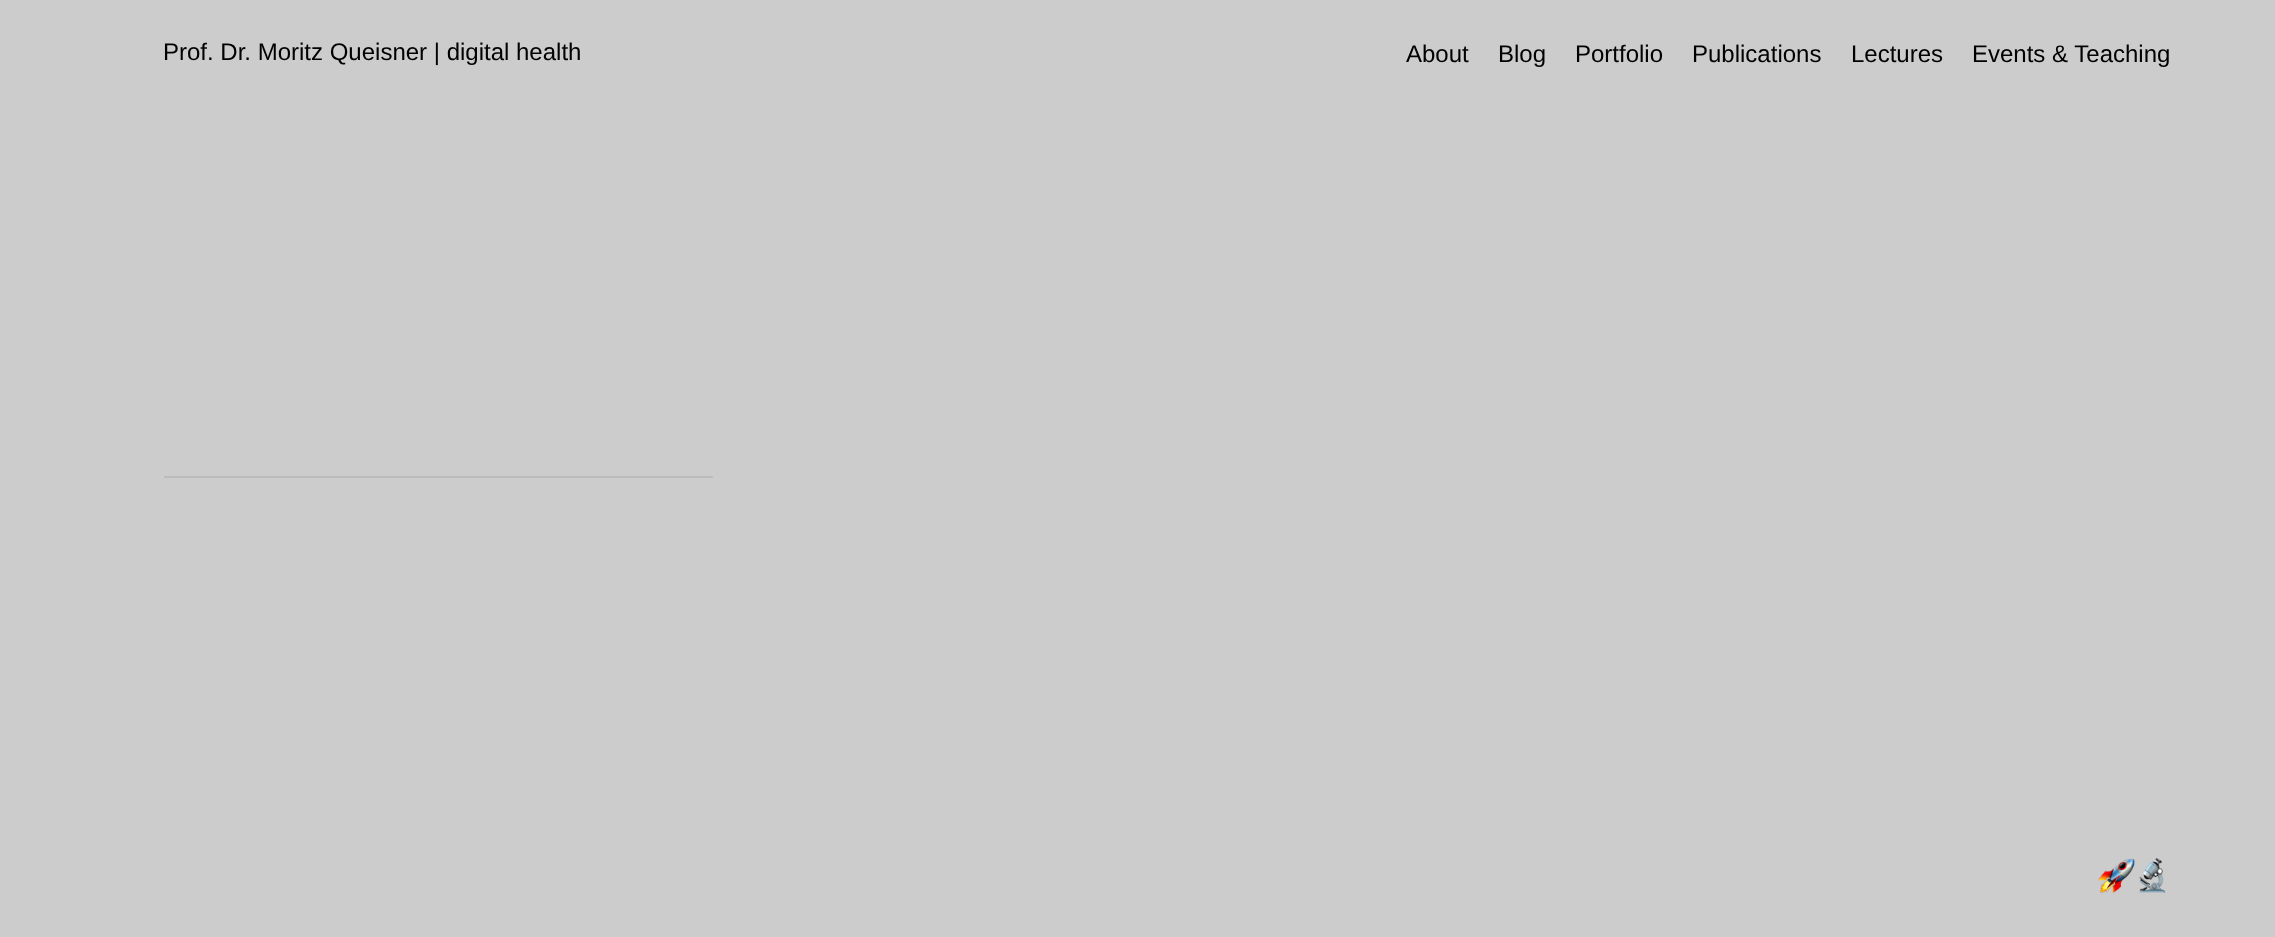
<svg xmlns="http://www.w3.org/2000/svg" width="2275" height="937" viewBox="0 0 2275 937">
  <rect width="100%" height="100%" fill="#ccc"/>
  <image x="2098" y="858" width="68" height="35" href="img/1.png"/>
  <path d="M164 476h549v2H164z" fill="#bcbcbc"/>
  <g font-family="Liberation Sans" font-size="24" fill="#000">
    <text x="163" y="60">Prof. Dr. Moritz Queisner | digital health</text>
    <text x="1406" y="62">About</text>
    <text x="1498" y="62">Blog</text>
    <text x="1575" y="62">Portfolio</text>
    <text x="1692" y="62">Publications</text>
    <text x="1851" y="62">Lectures</text>
    <text x="1972" y="62">Events &amp; Teaching</text>
  </g>
</svg>
